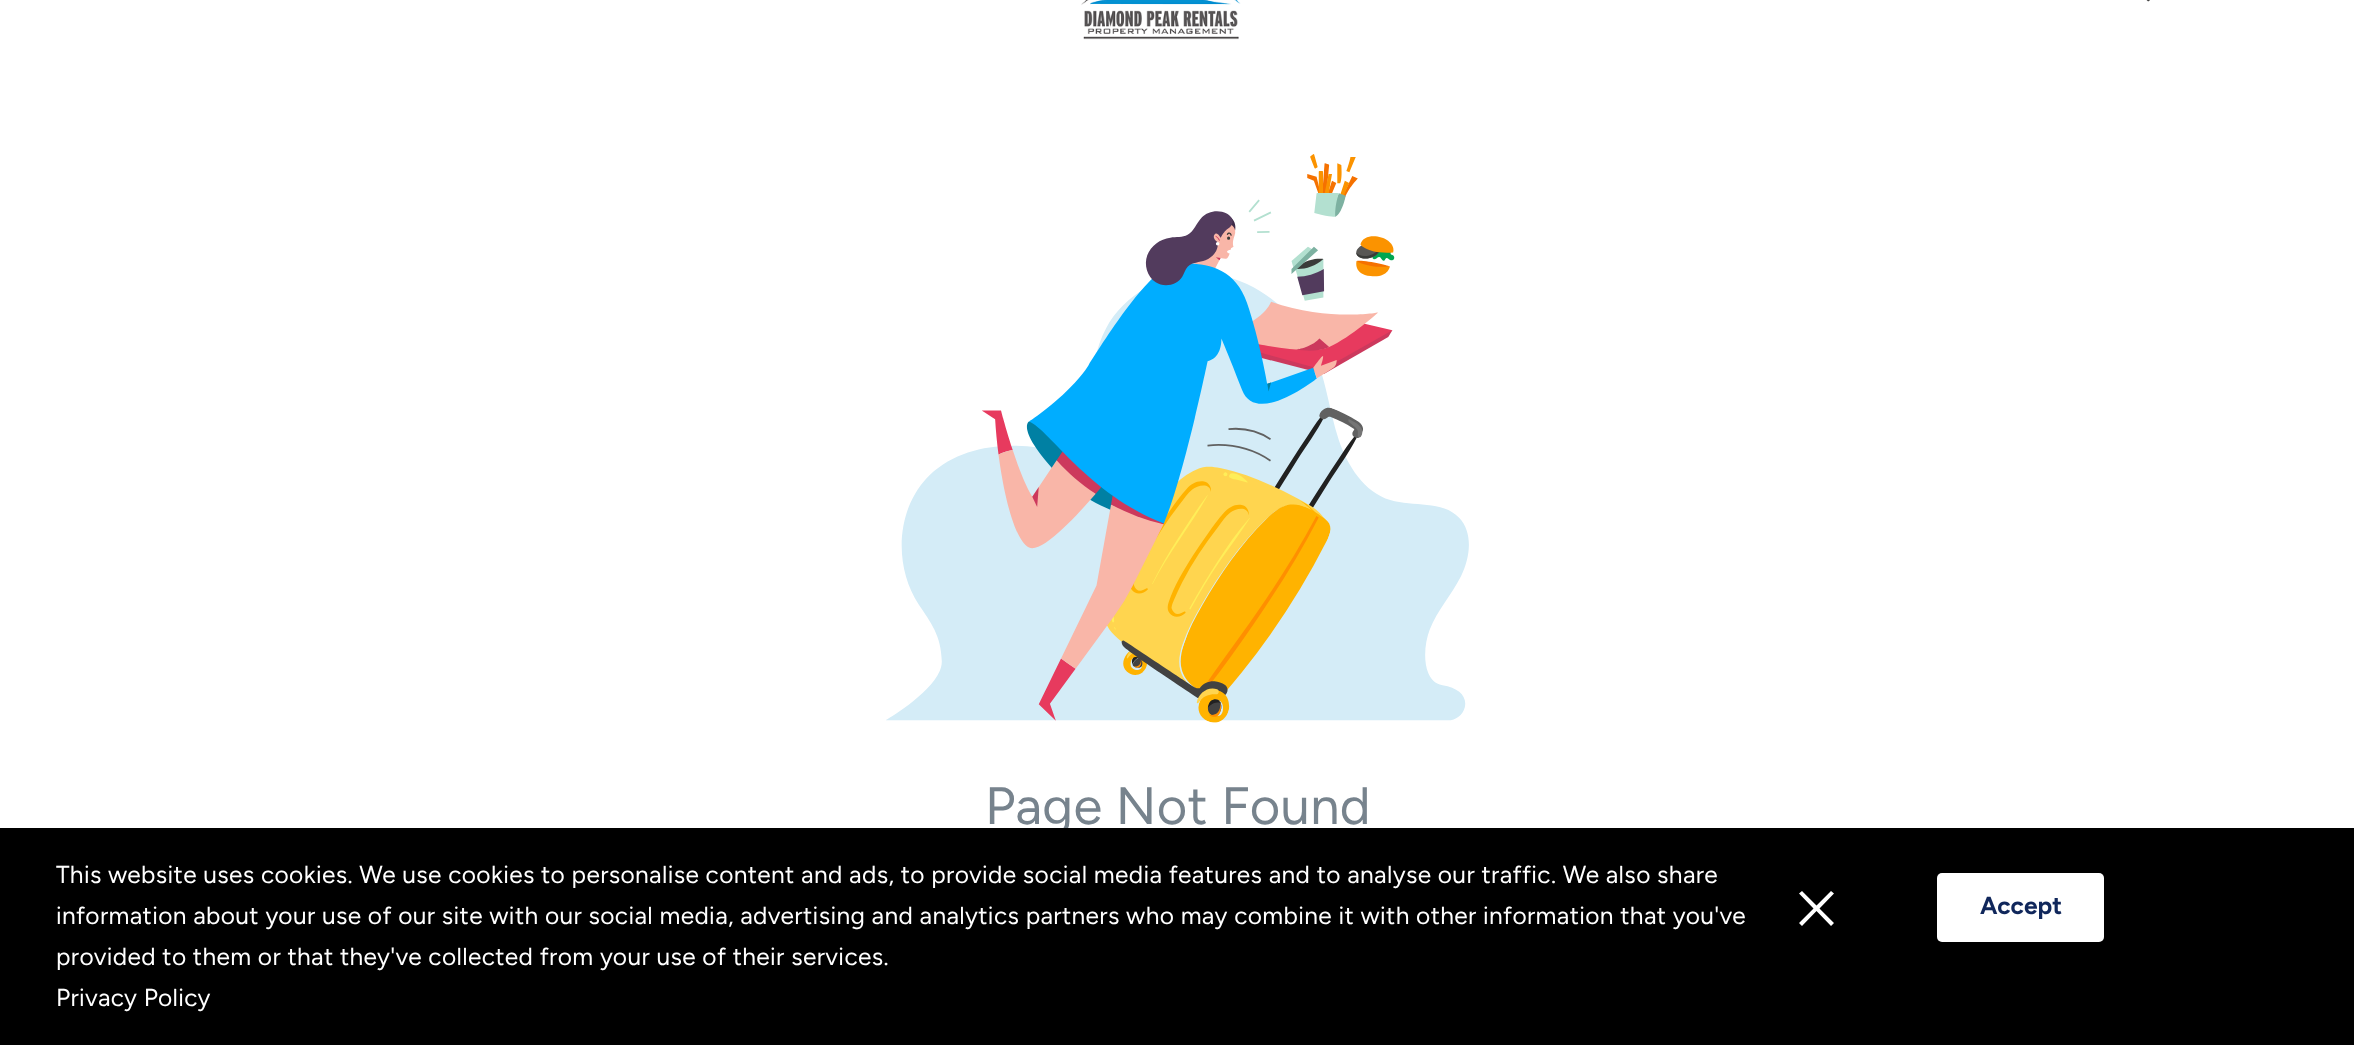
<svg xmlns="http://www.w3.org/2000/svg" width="2354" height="1045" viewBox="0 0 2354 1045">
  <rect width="100%" height="100%" fill="#fff"/>
  <image x="1081" y="0" width="160" height="40" href="img/1.png"/>
  <image x="2146" y="0" width="4" height="2" href="img/2.png"/>
  <image x="886" y="154" width="583" height="569" href="img/3.png"/>
  <text x="985" y="824" font-family="Figtree" font-size="52.5" letter-spacing="0.35" fill="#77838d">Page Not Found</text>
  <path d="M0 828h2354v217H0z" fill="#000"/>
  <g font-family="Figtree" font-size="24.5" letter-spacing="0.35" fill="#fff">
    <text x="56" y="883">This website uses cookies. We use cookies to personalise content and ads, to provide social media features and to analyse our traffic. We also share</text>
    <text x="56" y="924">information about your use of our site with our social media, advertising and analytics partners who may combine it with other information that you've</text>
    <text x="56" y="965">provided to them or that they've collected from your use of their services.</text>
    <text x="56" y="1006">Privacy Policy</text>
  </g>
  <path d="M1834 893.5L1831 891L1816.5 905.5L1802 891L1799 893.5L1813.5 908.5L1799 923L1802 926L1816.5 911L1831 926L1834 923L1819.5 908.5Z" fill="#fff"/>
  <rect x="1937" y="873" width="167" height="69" rx="5" fill="#fff"/>
  <text x="1980" y="914" font-family="Figtree" font-size="24.5" font-weight="bold" fill="#10275b">Accept</text>
</svg>
